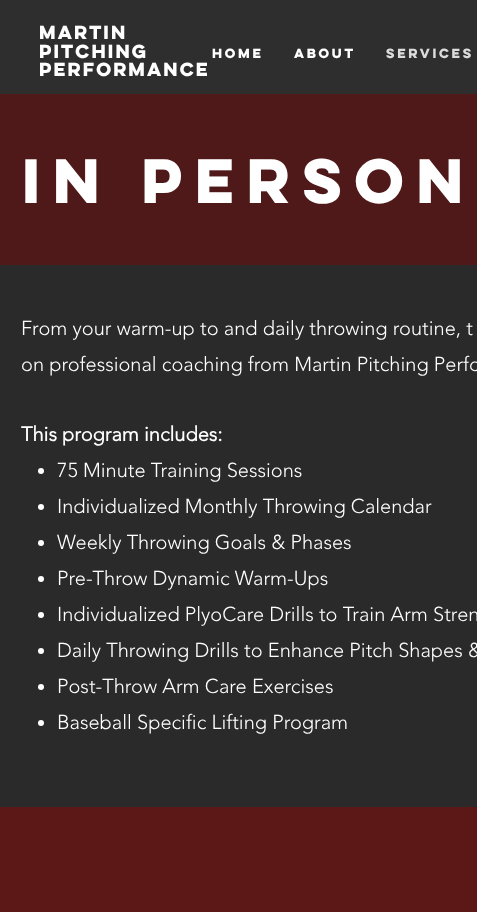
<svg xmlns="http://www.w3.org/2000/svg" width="477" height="912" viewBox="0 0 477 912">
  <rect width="100%" height="100%" fill="#2d2e2d"/>
  <path d="M0 94h477v171H0z" fill="#501919"/>
  <path d="M0 265h477v542H0z" fill="#292a29"/>
  <circle cx="41" cy="471" r="3" fill="#fff"/>
  <circle cx="41" cy="507" r="3" fill="#fff"/>
  <circle cx="41" cy="543" r="3" fill="#fff"/>
  <circle cx="41" cy="579" r="3" fill="#fff"/>
  <circle cx="41" cy="615" r="3" fill="#fff"/>
  <circle cx="41" cy="651" r="3" fill="#fff"/>
  <circle cx="41" cy="687" r="3" fill="#fff"/>
  <circle cx="41" cy="723" r="3" fill="#fff"/>
  <path d="M0 807h477v105H0z" fill="#5c1717"/>
  <g font-family="'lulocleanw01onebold'" font-size="17" font-weight="bold" letter-spacing="-1.75" fill="#fff">
    <text x="39" y="39">Martin</text>
    <text x="39" y="58">pitching</text>
    <text x="39" y="76">performancE</text>
  </g>
  <g font-family="'lulocleanw01onebold'" font-size="12" font-weight="bold" fill="#fff">
    <text x="212" y="58">HOME</text>
    <text x="294" y="58">ABOUT</text>
  </g>
  <text x="386" y="58" font-family="'lulocleanw01onebold'" font-size="12" font-weight="bold" fill="#dbdbdb">SERVICES</text>
  <text x="22" y="203" font-family="'lulocleanw01onebold'" font-size="56" font-weight="bold" fill="#fff">In person</text>
  <g font-family="'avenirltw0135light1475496'" font-size="20" font-weight="300" fill="#fff">
    <text x="21" y="335">From your warm-up to and daily throwing routine, t</text>
    <text x="21" y="371">on professional coaching from Martin Pitching Perfo</text>
  </g>
  <text x="21" y="441" font-family="'avenirltw0135light1475496'" font-size="20" font-weight="bold" fill="#fff">This program includes:</text>
  <g font-family="'avenirltw0135light1475496'" font-size="20" font-weight="300" fill="#fff">
    <text x="57" y="477">75 Minute Training Sessions</text>
    <text x="57" y="513">Individualized Monthly Throwing Calendar</text>
    <text x="57" y="549">Weekly Throwing Goals &amp; Phases</text>
    <text x="57" y="585">Pre-Throw Dynamic Warm-Ups</text>
    <text x="57" y="621">Individualized PlyoCare Drills to Train Arm Stren</text>
    <text x="57" y="657">Daily Throwing Drills to Enhance Pitch Shapes &amp;</text>
    <text x="57" y="693">Post-Throw Arm Care Exercises</text>
    <text x="57" y="729">Baseball Specific Lifting Program</text>
  </g>
</svg>
